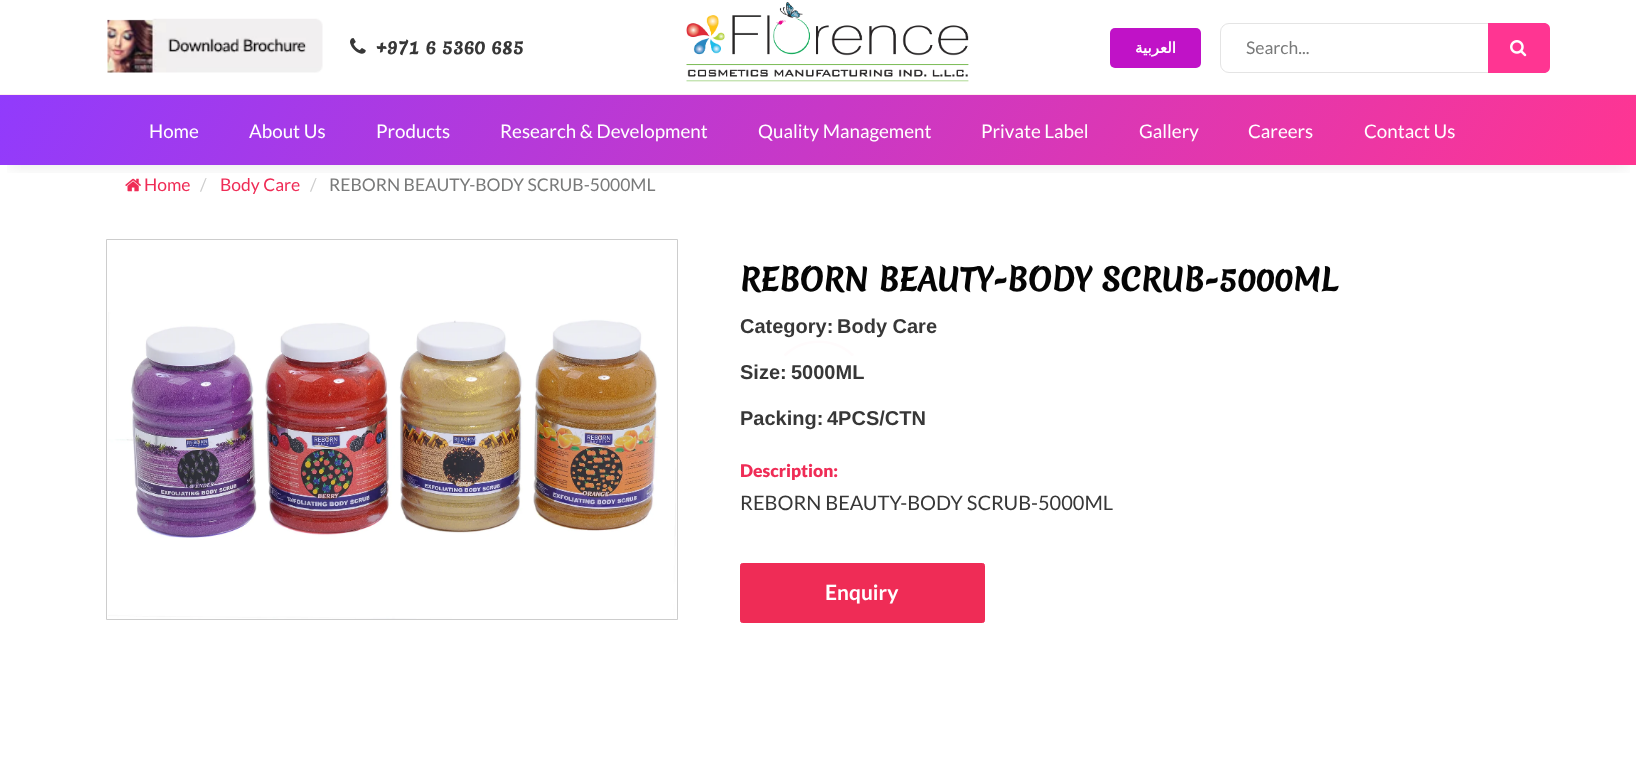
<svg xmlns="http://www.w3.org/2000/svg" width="1636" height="780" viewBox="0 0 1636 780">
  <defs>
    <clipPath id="clip1"><path d="M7 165h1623v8H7z"/></clipPath>
    <linearGradient id="g1" gradientUnits="userSpaceOnUse" x1="189" y1="-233" x2="1447" y2="493"><stop offset="0" stop-color="#913bfc"/><stop offset="1" stop-color="#ff3592"/></linearGradient>
  </defs>
  <rect width="100%" height="100%" fill="#fff"/>
  <image x="125" y="178" width="16" height="14" href="img/5.png"/>
  <g clip-path="url(#clip1)">
    <path d="M9 18h1619v147H9z" fill="#0505051a" filter="blur(9.5px)"/>
  </g>
  <path d="M0 94h1636v1H0z" fill="#ffeded"/>
  <image x="107" y="18" width="216" height="55" href="img/1.png"/>
  <image x="350" y="38" width="16" height="16" href="img/2.png"/>
  <image x="686" y="2" width="283" height="80" href="img/3.png"/>
  <rect x="1110" y="28" width="91" height="40" rx="5" fill="#c012c7"/>
  <rect x="1220.5" y="23.5" width="329" height="49" rx="8.5" fill="none" stroke="#e4e4e4"/>
  <path d="M1488 23H1544C1547.5 23 1550 25.5 1550 29V67C1550 70.5 1547.5 73 1544 73H1488Z" fill="#ff3592"/>
  <image x="1510" y="40" width="17" height="17" href="img/4.png"/>
  <path d="M0 95h1636v70H0z" fill="url(#g1)"/>
  <path d="M106.5 239.5h571v380H106.5z" fill="none" stroke="#cdcdcd"/>
  <image x="108" y="312" width="568" height="307" href="img/6.png"/>
  <rect x="740.5" y="563.5" width="244" height="59" rx="2" fill="#ef2c56" stroke="#ef2c56"/>
  <path d="M784.5 355.5C803 337 834.5 337 853 355.5" fill="none" stroke="#fffbfc" stroke-width="2.5"/>
  <text x="376" y="54" font-family="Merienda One" font-size="17.5" font-weight="bold" fill="#373737">+971 6 5360 685</text>
  <text x="1176" y="53" font-family="DejaVu Sans" font-size="15" font-weight="bold" direction="rtl" fill="#fff">العربية</text>
  <text x="1246" y="54" font-family="Lato" font-size="17.5" fill="#797a7a">Search...</text>
  <g font-family="Lato" font-size="18.75" fill="#fff">
    <text x="149" y="138">Home</text>
    <text x="249" y="138">About Us</text>
    <text x="376" y="138">Products</text>
    <text x="500" y="138">Research &amp; Development</text>
    <text x="758" y="138">Quality Management</text>
    <text x="981" y="138">Private Label</text>
    <text x="1139" y="138">Gallery</text>
    <text x="1248" y="138">Careers</text>
    <text x="1364" y="138">Contact Us</text>
  </g>
  <text x="144" y="191" font-family="Lato" font-size="17.5" fill="#ef2c56">Home</text>
  <text x="200" y="191" font-family="Lato" font-size="17.5" fill="#cdcdcd">/</text>
  <text x="220" y="191" font-family="Lato" font-size="17.5" fill="#ef2c56">Body Care</text>
  <text x="310" y="191" font-family="Lato" font-size="17.5" fill="#cdcdcd">/</text>
  <text x="329" y="191" font-family="Lato" font-size="17.5" fill="#797a7a">REBORN BEAUTY-BODY SCRUB-5000ML</text>
  <text x="740" y="291" font-family="Merienda One" font-size="30" font-weight="bold" fill="#050505">REBORN BEAUTY-BODY SCRUB-5000ML</text>
  <g font-family="Liberation Sans" font-size="20" font-weight="bold" fill="#373737">
    <text x="740" y="333">Category:</text>
    <text x="837" y="333">Body Care</text>
    <text x="740" y="379">Size:</text>
    <text x="791" y="379">5000ML</text>
    <text x="740" y="425">Packing:</text>
    <text x="827" y="425">4PCS/CTN</text>
  </g>
  <text x="740" y="477" font-family="Lato" font-size="17.5" font-weight="900" fill="#ef2c56">Description:</text>
  <text x="740" y="510" font-family="Lato" font-size="20" fill="#373737">REBORN BEAUTY-BODY SCRUB-5000ML</text>
  <text x="825" y="600" font-family="Lato" font-size="21" font-weight="bold" fill="#fff">Enquiry</text>
</svg>
